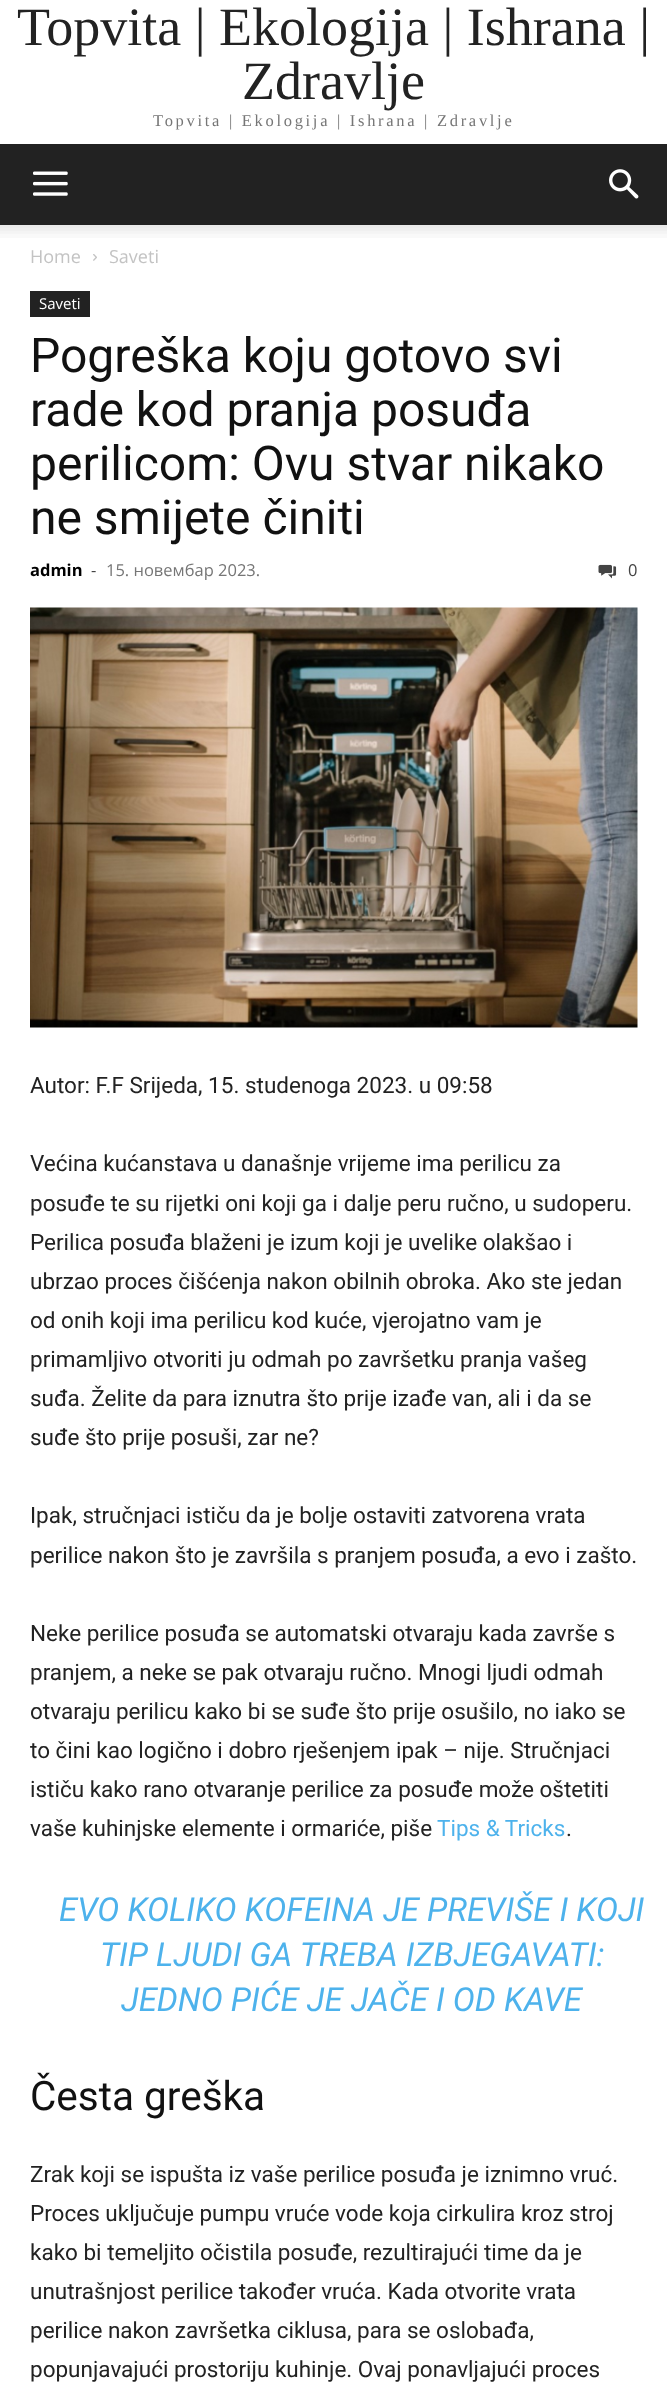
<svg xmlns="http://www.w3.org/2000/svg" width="667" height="2392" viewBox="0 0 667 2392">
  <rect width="100%" height="100%" fill="#fff"/>
  <path d="M0 144h667v81H0z" fill="#222"/>
  <image x="33" y="171" width="35" height="25" href="img/1.png"/>
  <image x="609" y="169" width="30" height="30" href="img/2.png"/>
  <image x="0" y="225" width="667" height="13" href="img/3.png"/>
  <image x="93" y="254" width="4" height="7" href="img/4.png"/>
  <path d="M30 291h60v26H30z" fill="#222"/>
  <image x="598" y="564" width="19" height="15" href="img/5.png"/>
  <image x="30" y="607" width="608" height="421" href="img/6.png"/>
  <g font-family="Liberation Serif" font-size="54" fill="#222">
    <text x="17" y="45">Topvita | Ekologija | Ishrana |</text>
    <text x="242" y="99">Zdravlje</text>
  </g>
  <text x="153" y="126" font-family="Liberation Serif" font-size="16.5" letter-spacing="2.7" fill="#767676">Topvita | Ekologija | Ishrana | Zdravlje</text>
  <g font-family="Open Sans" font-size="18" fill="#c3c3c3">
    <text x="30" y="263">Home</text>
    <text x="109" y="263">Saveti</text>
  </g>
  <text x="39" y="309" font-family="Open Sans" font-size="15" fill="#fff">Saveti</text>
  <g font-family="Roboto" font-size="48" fill="#111">
    <text x="30" y="372">Pogreška koju gotovo svi</text>
    <text x="30" y="426">rade kod pranja posuđa</text>
    <text x="30" y="480">perilicom: Ovu stvar nikako</text>
    <text x="30" y="534">ne smijete činiti</text>
  </g>
  <text x="30" y="576" font-family="Open Sans" font-size="16.5" font-weight="bold" fill="#000">admin</text>
  <text x="91" y="576" font-family="Open Sans" font-size="16.5" fill="#444">-</text>
  <text x="106" y="576" font-family="Open Sans" font-size="16.5" fill="#767676">15. новембар 2023.</text>
  <text x="628" y="576" font-family="Open Sans" font-size="16.5" fill="#444">0</text>
  <g font-family="Roboto" font-size="22.5" fill="#222">
    <text x="30" y="1093">Autor: F.F Srijeda, 15. studenoga 2023. u 09:58</text>
    <text x="30" y="1171">Većina kućanstava u današnje vrijeme ima perilicu za</text>
    <text x="30" y="1211">posuđe te su rijetki oni koji ga i dalje peru ručno, u sudoperu.</text>
    <text x="30" y="1250">Perilica posuđa blaženi je izum koji je uvelike olakšao i</text>
    <text x="30" y="1289">ubrzao proces čišćenja nakon obilnih obroka. Ako ste jedan</text>
    <text x="30" y="1328">od onih koji ima perilicu kod kuće, vjerojatno vam je</text>
    <text x="30" y="1367">primamljivo otvoriti ju odmah po završetku pranja vašeg</text>
    <text x="30" y="1406">suđa. Želite da para iznutra što prije izađe van, ali i da se</text>
    <text x="30" y="1445">suđe što prije posuši, zar ne?</text>
    <text x="30" y="1523">Ipak, stručnjaci ističu da je bolje ostaviti zatvorena vrata</text>
    <text x="30" y="1563">perilice nakon što je završila s pranjem posuđa, a evo i zašto.</text>
    <text x="30" y="1641">Neke perilice posuđa se automatski otvaraju kada završe s</text>
    <text x="30" y="1680">pranjem, a neke se pak otvaraju ručno. Mnogi ljudi odmah</text>
    <text x="30" y="1719">otvaraju perilicu kako bi se suđe što prije osušilo, no iako se</text>
    <text x="30" y="1758">to čini kao logično i dobro rješenjem ipak – nije. Stručnjaci</text>
    <text x="30" y="1797">ističu kako rano otvaranje perilice za posuđe može oštetiti</text>
    <text x="30" y="1836">vaše kuhinjske elemente i ormariće, piše</text>
  </g>
  <text x="437" y="1836" font-family="Roboto" font-size="22.5" fill="#4db2ec">Tips &amp; Tricks</text>
  <text x="566" y="1836" font-family="Roboto" font-size="22.5" fill="#222">.</text>
  <g font-family="Roboto" font-size="33" font-style="italic" fill="#4db2ec">
    <text x="59" y="1921">EVO KOLIKO KOFEINA JE PREVIŠE I KOJI</text>
    <text x="100" y="1966">TIP LJUDI GA TREBA IZBJEGAVATI:</text>
    <text x="121" y="2011">JEDNO PIĆE JE JAČE I OD KAVE</text>
  </g>
  <text x="30" y="2110" font-family="Roboto" font-size="40.5" fill="#111">Česta greška</text>
  <g font-family="Roboto" font-size="22.5" fill="#222">
    <text x="30" y="2182">Zrak koji se ispušta iz vaše perilice posuđa je iznimno vruć.</text>
    <text x="30" y="2221">Proces uključuje pumpu vruće vode koja cirkulira kroz stroj</text>
    <text x="30" y="2260">kako bi temeljito očistila posuđe, rezultirajući time da je</text>
    <text x="30" y="2299">unutrašnjost perilice također vruća. Kada otvorite vrata</text>
    <text x="30" y="2338">perilice nakon završetka ciklusa, para se oslobađa,</text>
    <text x="30" y="2377">popunjavajući prostoriju kuhinje. Ovaj ponavljajući proces</text>
  </g>
</svg>
